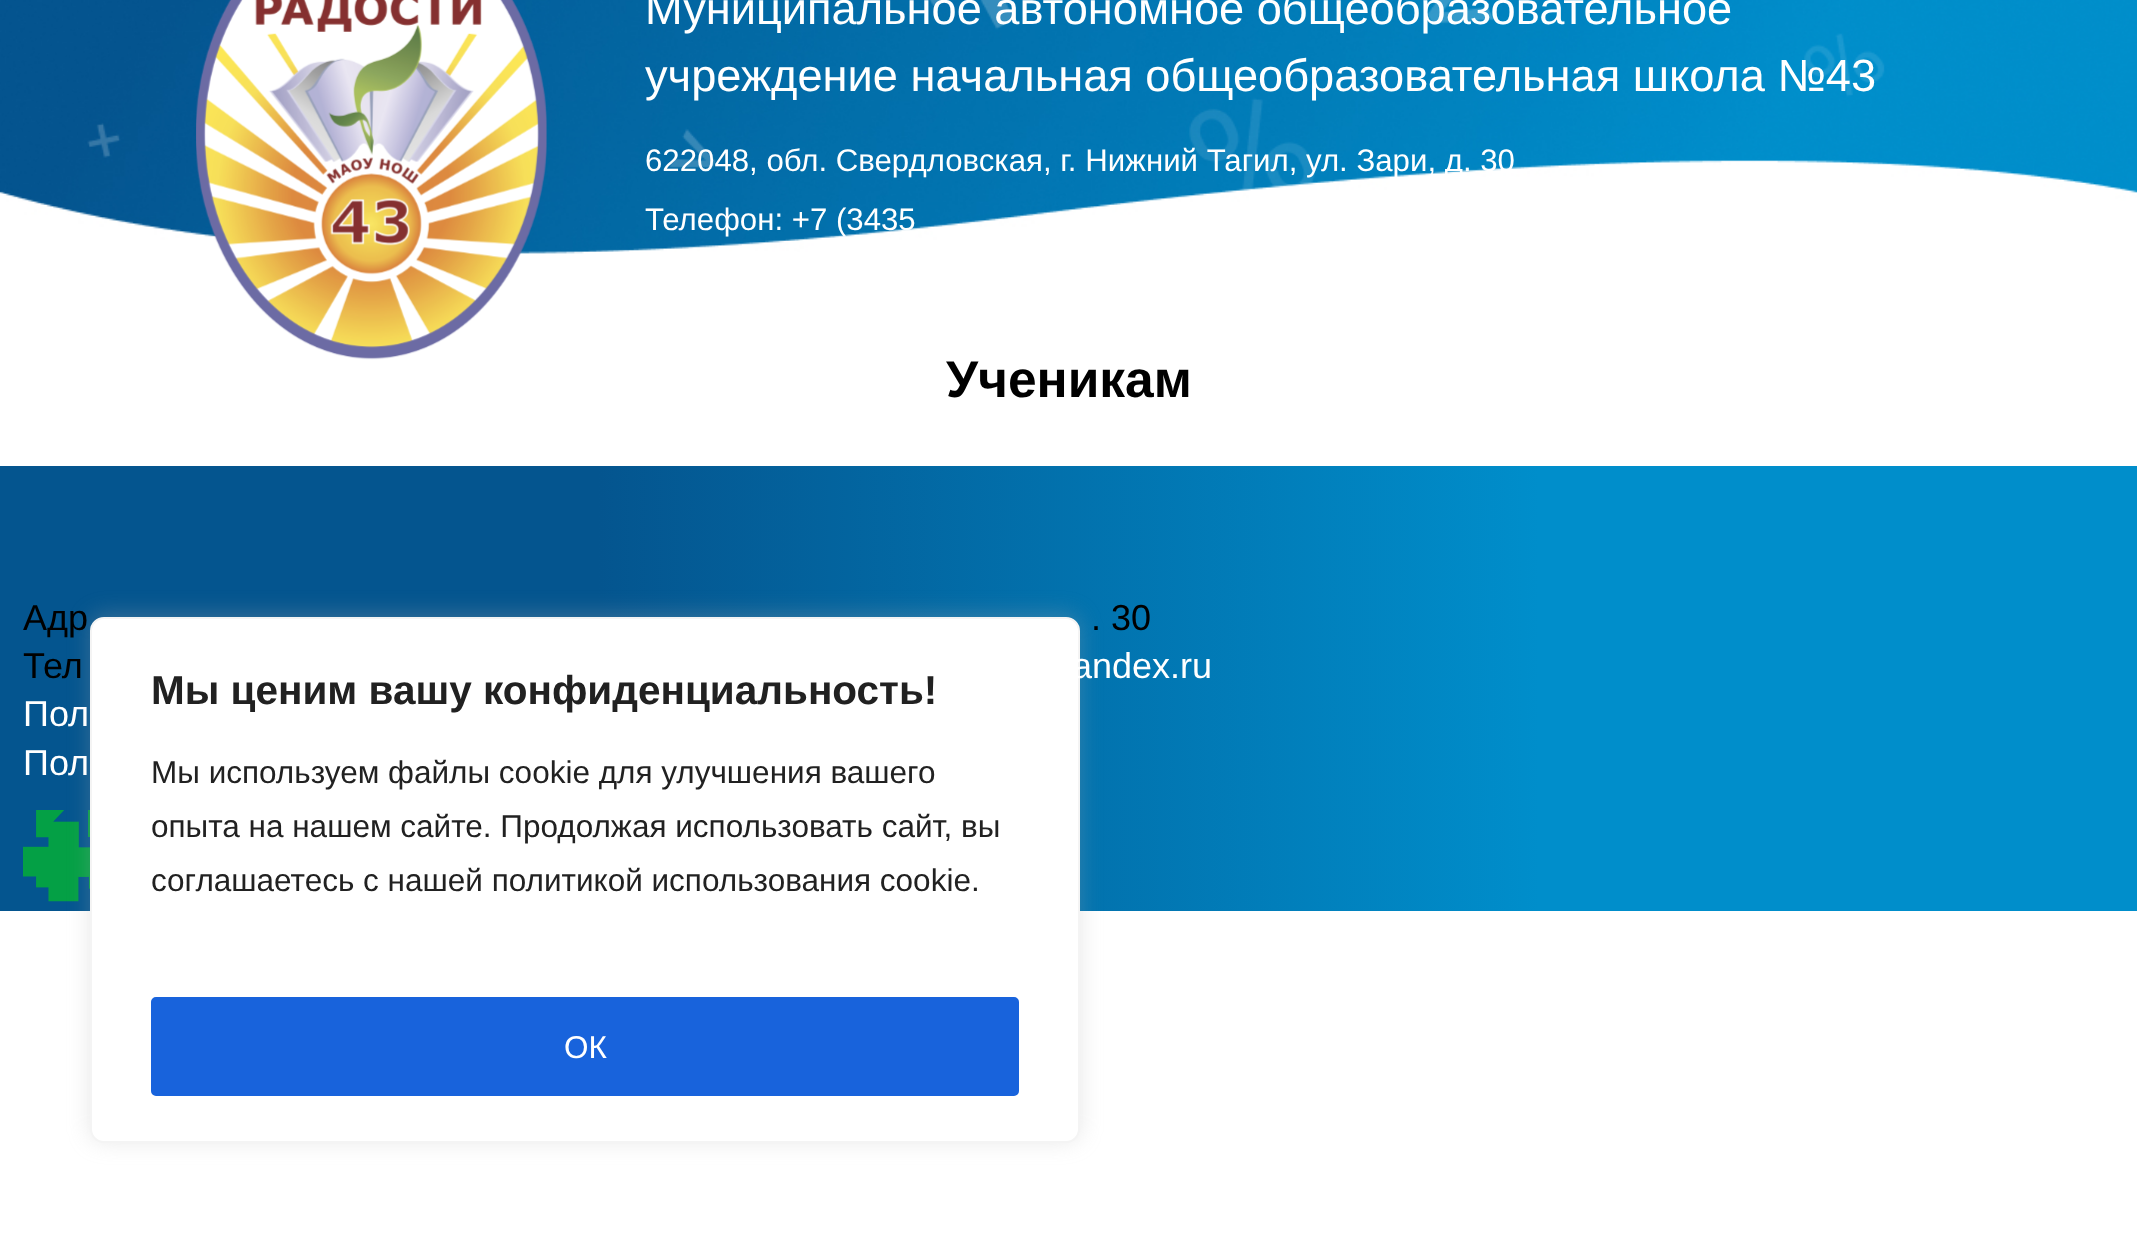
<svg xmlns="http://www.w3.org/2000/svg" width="2137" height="1233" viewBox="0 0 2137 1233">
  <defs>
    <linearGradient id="g1" gradientUnits="userSpaceOnUse" x1="0" y1="689" x2="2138" y2="688"><stop offset="0.28" stop-color="#04558f"/><stop offset="0.72" stop-color="#008ecb"/></linearGradient>
  </defs>
  <rect width="100%" height="100%" fill="#fff"/>
  <image x="0" y="0" width="2137" height="254" href="img/1.png"/>
  <image x="196" y="0" width="351" height="360" href="img/2.png"/>
  <path d="M0 466h2137v445H0z" fill="url(#g1)"/>
  <image x="23" y="810" width="67" height="92" href="img/3.png"/>
  <rect x="90" y="614" width="990" height="527" rx="14" fill="#acabab4d" filter="blur(11px)"/>
  <rect x="91" y="618" width="988" height="524" rx="13" fill="#fff" stroke="#f4f4f4" stroke-width="2"/>
  <rect x="153.5" y="999.5" width="863" height="94" rx="2.5" fill="#1863dc" stroke="#1863dc" stroke-width="5"/>
  <g font-family="Liberation Sans" font-size="45.2" fill="#fff">
    <text x="645" y="24">Муниципальное автономное общеобразовательное</text>
    <text x="645" y="91">учреждение начальная общеобразовательная школа №43</text>
  </g>
  <g font-family="Liberation Sans" font-size="31.2" fill="#fff">
    <text x="645" y="171">622048, обл. Свердловская, г. Нижний Тагил, ул. Зари, д. 30</text>
    <text x="645" y="230">Телефон: +7 (3435</text>
  </g>
  <text x="946" y="397" font-family="Liberation Sans" font-size="51.5" font-weight="bold" fill="#000">Ученикам</text>
  <g font-family="Liberation Sans" font-size="36" fill="#000">
    <text x="23" y="630">Адр</text>
    <text x="1091" y="630">. 30</text>
    <text x="23" y="678">Тел</text>
  </g>
  <g font-family="Liberation Sans" font-size="36" fill="#fff">
    <text x="1072" y="678">andex.ru</text>
    <text x="23" y="726">Пол</text>
    <text x="23" y="775">Пол</text>
  </g>
  <text x="151" y="704" font-family="Liberation Sans" font-size="40.5" font-weight="bold" fill="#212121">Мы ценим вашу конфиденциальность!</text>
  <g font-family="Liberation Sans" font-size="31.5" fill="#212121">
    <text x="151" y="783">Мы используем файлы cookie для улучшения вашего</text>
    <text x="151" y="837">опыта на нашем сайте. Продолжая использовать сайт, вы</text>
    <text x="151" y="891">соглашаетесь с нашей политикой использования cookie.</text>
  </g>
  <text x="564" y="1058" font-family="Liberation Sans" font-size="31.5" fill="#fff">ОК</text>
</svg>
